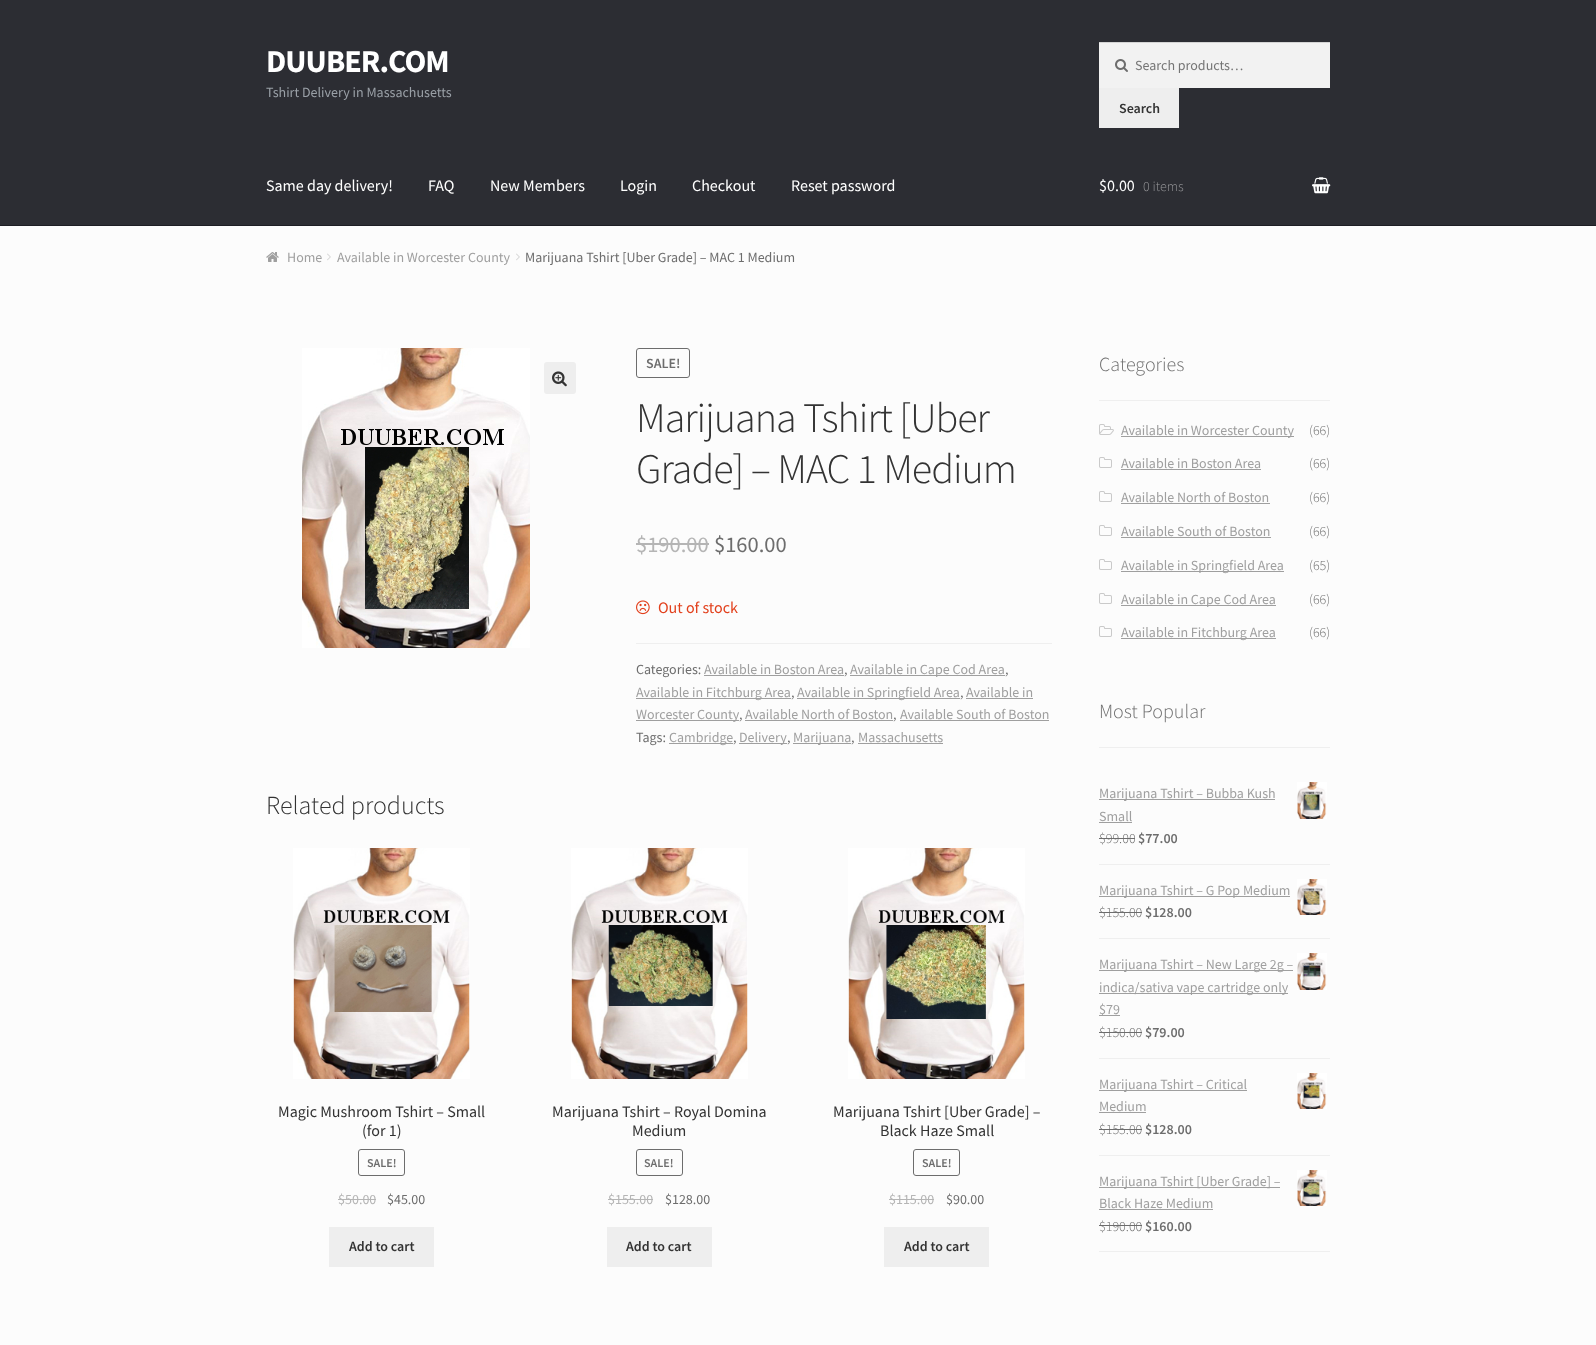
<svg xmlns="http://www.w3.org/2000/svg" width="1596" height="1345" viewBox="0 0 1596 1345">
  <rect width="100%" height="100%" fill="#fcfcfc"/>
  <path d="M0 0h1596v225H0z" fill="#2c2d33"/>
  <path d="M0 225h1596v1H0z" fill="#1d1e24"/>
  <path d="M1099 43h231v45H1099z" fill="#f2f2f2"/>
  <image x="1115" y="59" width="13" height="13" href="img/1.png"/>
  <path d="M1099 42h231v1H1099z" fill="#d4d4d4"/>
  <path d="M1099 88h80v40H1099z" fill="#eee"/>
  <image x="1312" y="177" width="19" height="17" href="img/2.png"/>
  <image x="266" y="252" width="13" height="10" href="img/3.png"/>
  <image x="327" y="253" width="4" height="8" href="img/4.png"/>
  <image x="516" y="253" width="4" height="8" href="img/4.png"/>
  <image x="302" y="348" width="228" height="300" href="img/5.png"/>
  <rect x="544" y="362" width="32" height="32" rx="3" fill="#eee"/>
  <image x="552" y="371" width="15" height="16" href="img/6.png"/>
  <rect x="636.5" y="348.5" width="53" height="29" rx="2.5" fill="none" stroke="#6d6d6d"/>
  <path d="M636 543h73v2H636z" fill="#b5b5b5"/>
  <image x="636" y="600" width="14" height="15" href="img/7.png"/>
  <path d="M636 643h416v1H636z" fill="#efefef"/>
  <path d="M704 675h140v1H704z" fill="#9f9f9f"/>
  <path d="M850 675h155v1H850z" fill="#9f9f9f"/>
  <path d="M636 698h155v1H636z" fill="#9f9f9f"/>
  <path d="M797 698h163v1H797z" fill="#9f9f9f"/>
  <path d="M966 698h67v1H966z" fill="#9f9f9f"/>
  <path d="M636 720h103v1H636z" fill="#9f9f9f"/>
  <path d="M745 720h148v1H745z" fill="#9f9f9f"/>
  <path d="M900 720h149v1H900z" fill="#9f9f9f"/>
  <path d="M669 743h64v1H669z" fill="#9f9f9f"/>
  <path d="M739 743h48v1H739z" fill="#9f9f9f"/>
  <path d="M793 743h58v1H793z" fill="#9f9f9f"/>
  <path d="M858 743h85v1H858z" fill="#9f9f9f"/>
  <image x="293" y="848" width="177" height="231" href="img/8.png"/>
  <rect x="358.5" y="1149.5" width="46" height="26" rx="2.5" fill="none" stroke="#6d6d6d"/>
  <path d="M338 1199h7v1H338z" fill="#b5b5b5"/>
  <path d="M345 1199h31v1H345z" fill="#b5b5b5"/>
  <path d="M329 1227h105v40H329z" fill="#eee"/>
  <image x="571" y="848" width="177" height="231" href="img/9.png"/>
  <rect x="636.5" y="1149.5" width="46" height="26" rx="2.5" fill="none" stroke="#6d6d6d"/>
  <path d="M608 1199h45v1H608z" fill="#b5b5b5"/>
  <path d="M607 1227h105v40H607z" fill="#eee"/>
  <image x="848" y="848" width="177" height="231" href="img/10.png"/>
  <rect x="913.5" y="1149.5" width="46" height="26" rx="2.5" fill="none" stroke="#6d6d6d"/>
  <path d="M889 1199h45v1H889z" fill="#b5b5b5"/>
  <path d="M884 1227h105v40H884z" fill="#eee"/>
  <path d="M1099 400h231v1H1099z" fill="#efefef"/>
  <image x="1099" y="424" width="15" height="11" href="img/11.png"/>
  <path d="M1121 436h173v1H1121z" fill="#9f9f9f"/>
  <image x="1099" y="457" width="13" height="11" href="img/12.png"/>
  <path d="M1121 469h140v1H1121z" fill="#9f9f9f"/>
  <image x="1099" y="491" width="13" height="11" href="img/12.png"/>
  <path d="M1121 503h149v1H1121z" fill="#9f9f9f"/>
  <image x="1099" y="525" width="13" height="11" href="img/12.png"/>
  <path d="M1121 537h150v1H1121z" fill="#9f9f9f"/>
  <image x="1099" y="559" width="13" height="11" href="img/12.png"/>
  <path d="M1121 571h163v1H1121z" fill="#9f9f9f"/>
  <image x="1099" y="593" width="13" height="11" href="img/12.png"/>
  <path d="M1121 605h155v1H1121z" fill="#9f9f9f"/>
  <image x="1099" y="626" width="13" height="11" href="img/12.png"/>
  <path d="M1121 638h155v1H1121z" fill="#9f9f9f"/>
  <path d="M1099 747h231v1H1099z" fill="#efefef"/>
  <path d="M1099 864h231v1H1099z" fill="#efefef"/>
  <path d="M1099 799h176v1H1099z" fill="#9f9f9f"/>
  <image x="1297" y="782" width="30" height="37" href="img/13.png"/>
  <path d="M1099 822h33v1H1099z" fill="#9f9f9f"/>
  <path d="M1099 838h36v1H1099z" fill="#6d6d6d"/>
  <path d="M1099 938h231v1H1099z" fill="#efefef"/>
  <path d="M1099 896h191v1H1099z" fill="#9f9f9f"/>
  <image x="1297" y="879" width="30" height="36" href="img/14.png"/>
  <path d="M1099 912h43v1H1099z" fill="#6d6d6d"/>
  <path d="M1099 1058h231v1H1099z" fill="#efefef"/>
  <path d="M1099 970h194v1H1099z" fill="#9f9f9f"/>
  <image x="1297" y="953" width="30" height="37" href="img/15.png"/>
  <path d="M1099 993h189v1H1099z" fill="#9f9f9f"/>
  <path d="M1099 1015h21v1H1099z" fill="#9f9f9f"/>
  <path d="M1099 1032h43v1H1099z" fill="#6d6d6d"/>
  <path d="M1099 1155h231v1H1099z" fill="#efefef"/>
  <path d="M1099 1090h148v1H1099z" fill="#9f9f9f"/>
  <image x="1297" y="1073" width="30" height="36" href="img/16.png"/>
  <path d="M1099 1112h47v1H1099z" fill="#9f9f9f"/>
  <path d="M1099 1129h43v1H1099z" fill="#6d6d6d"/>
  <path d="M1099 1251h231v1H1099z" fill="#efefef"/>
  <path d="M1099 1187h181v1H1099z" fill="#9f9f9f"/>
  <image x="1297" y="1170" width="30" height="36" href="img/17.png"/>
  <path d="M1099 1209h114v1H1099z" fill="#9f9f9f"/>
  <path d="M1099 1225h43v1H1099z" fill="#6d6d6d"/>
  <text x="266" y="72" font-family="Source Sans Pro" font-size="32" font-weight="bold" letter-spacing="-1" fill="#fff">DUUBER.COM</text>
  <text x="266" y="97" font-family="Source Sans Pro" font-size="14" fill="#9aa0a7">Tshirt Delivery in Massachusetts</text>
  <text x="1135" y="70" font-family="Source Sans Pro" font-size="14" fill="#757575">Search products…</text>
  <text x="1119" y="113" font-family="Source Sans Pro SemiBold" font-size="14" font-weight="600" fill="#333">Search</text>
  <g font-family="Source Sans Pro" font-size="16" fill="#fff">
    <text x="266" y="191">Same day delivery!</text>
    <text x="428" y="191">FAQ</text>
    <text x="490" y="191">New Members</text>
    <text x="620" y="191">Login</text>
    <text x="692" y="191">Checkout</text>
    <text x="791" y="191">Reset password</text>
    <text x="1099" y="191">$0.00</text>
  </g>
  <text x="1143" y="191" font-family="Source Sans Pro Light" font-size="14" font-weight="300" fill="#969699">0 items</text>
  <g font-family="Source Sans Pro" font-size="14" fill="#9f9f9f">
    <text x="287" y="262">Home</text>
    <text x="337" y="262">Available in Worcester County</text>
  </g>
  <text x="525" y="262" font-family="Source Sans Pro" font-size="14" fill="#6d6d6d">Marijuana Tshirt [Uber Grade] – MAC 1 Medium</text>
  <text x="646" y="368" font-family="Source Sans Pro SemiBold" font-size="14" font-weight="600" fill="#6d6d6d">SALE!</text>
  <g font-family="Source Sans Pro Light" font-size="42" font-weight="300" letter-spacing="-1" fill="#333">
    <text x="636" y="432">Marijuana Tshirt [Uber</text>
    <text x="636" y="483">Grade] – MAC 1 Medium</text>
  </g>
  <text x="636" y="552" font-family="Source Sans Pro" font-size="22.5" fill="#b5b5b5">$190.00</text>
  <text x="714" y="552" font-family="Source Sans Pro" font-size="22.5" fill="#6d6d6d">$160.00</text>
  <text x="658" y="613" font-family="Source Sans Pro" font-size="16" fill="#e2401c">Out of stock</text>
  <text x="636" y="674" font-family="Source Sans Pro" font-size="14" fill="#6d6d6d">Categories:</text>
  <text x="704" y="674" font-family="Source Sans Pro" font-size="14" fill="#9f9f9f">Available in Boston Area</text>
  <text x="844" y="674" font-family="Source Sans Pro" font-size="14" fill="#6d6d6d">,</text>
  <text x="850" y="674" font-family="Source Sans Pro" font-size="14" fill="#9f9f9f">Available in Cape Cod Area</text>
  <text x="1005" y="674" font-family="Source Sans Pro" font-size="14" fill="#6d6d6d">,</text>
  <text x="636" y="697" font-family="Source Sans Pro" font-size="14" fill="#9f9f9f">Available in Fitchburg Area</text>
  <text x="791" y="697" font-family="Source Sans Pro" font-size="14" fill="#6d6d6d">,</text>
  <text x="797" y="697" font-family="Source Sans Pro" font-size="14" fill="#9f9f9f">Available in Springfield Area</text>
  <text x="960" y="697" font-family="Source Sans Pro" font-size="14" fill="#6d6d6d">,</text>
  <g font-family="Source Sans Pro" font-size="14" fill="#9f9f9f">
    <text x="966" y="697">Available in</text>
    <text x="636" y="719">Worcester County</text>
  </g>
  <text x="739" y="719" font-family="Source Sans Pro" font-size="14" fill="#6d6d6d">,</text>
  <text x="745" y="719" font-family="Source Sans Pro" font-size="14" fill="#9f9f9f">Available North of Boston</text>
  <text x="893" y="719" font-family="Source Sans Pro" font-size="14" fill="#6d6d6d">,</text>
  <text x="900" y="719" font-family="Source Sans Pro" font-size="14" fill="#9f9f9f">Available South of Boston</text>
  <text x="636" y="742" font-family="Source Sans Pro" font-size="14" fill="#6d6d6d">Tags:</text>
  <text x="669" y="742" font-family="Source Sans Pro" font-size="14" fill="#9f9f9f">Cambridge</text>
  <text x="733" y="742" font-family="Source Sans Pro" font-size="14" fill="#6d6d6d">,</text>
  <text x="739" y="742" font-family="Source Sans Pro" font-size="14" fill="#9f9f9f">Delivery</text>
  <text x="787" y="742" font-family="Source Sans Pro" font-size="14" fill="#6d6d6d">,</text>
  <text x="793" y="742" font-family="Source Sans Pro" font-size="14" fill="#9f9f9f">Marijuana</text>
  <text x="851" y="742" font-family="Source Sans Pro" font-size="14" fill="#6d6d6d">,</text>
  <text x="858" y="742" font-family="Source Sans Pro" font-size="14" fill="#9f9f9f">Massachusetts</text>
  <text x="266" y="814" font-family="Source Sans Pro Light" font-size="26" font-weight="300" fill="#333">Related products</text>
  <g font-family="Source Sans Pro" font-size="16" fill="#333">
    <text x="278" y="1117">Magic Mushroom Tshirt – Small</text>
    <text x="362" y="1136">(for 1)</text>
  </g>
  <text x="367" y="1167" font-family="Source Sans Pro SemiBold" font-size="12" font-weight="600" fill="#6d6d6d">SALE!</text>
  <g font-family="Source Sans Pro" font-size="14" fill="#b5b5b5">
    <text x="338" y="1204">$</text>
    <text x="345" y="1204">50.00</text>
  </g>
  <text x="387" y="1204" font-family="Source Sans Pro" font-size="14" fill="#6d6d6d">$45.00</text>
  <text x="349" y="1251" font-family="Source Sans Pro SemiBold" font-size="14" font-weight="600" fill="#333">Add to cart</text>
  <g font-family="Source Sans Pro" font-size="16" fill="#333">
    <text x="552" y="1117">Marijuana Tshirt – Royal Domina</text>
    <text x="632" y="1136">Medium</text>
  </g>
  <text x="644" y="1167" font-family="Source Sans Pro SemiBold" font-size="12" font-weight="600" fill="#6d6d6d">SALE!</text>
  <text x="608" y="1204" font-family="Source Sans Pro" font-size="14" fill="#b5b5b5">$155.00</text>
  <text x="665" y="1204" font-family="Source Sans Pro" font-size="14" fill="#6d6d6d">$128.00</text>
  <text x="626" y="1251" font-family="Source Sans Pro SemiBold" font-size="14" font-weight="600" fill="#333">Add to cart</text>
  <g font-family="Source Sans Pro" font-size="16" fill="#333">
    <text x="833" y="1117">Marijuana Tshirt [Uber Grade] –</text>
    <text x="880" y="1136">Black Haze Small</text>
  </g>
  <text x="922" y="1167" font-family="Source Sans Pro SemiBold" font-size="12" font-weight="600" fill="#6d6d6d">SALE!</text>
  <text x="889" y="1204" font-family="Source Sans Pro" font-size="14" fill="#b5b5b5">$115.00</text>
  <text x="946" y="1204" font-family="Source Sans Pro" font-size="14" fill="#6d6d6d">$90.00</text>
  <text x="904" y="1251" font-family="Source Sans Pro SemiBold" font-size="14" font-weight="600" fill="#333">Add to cart</text>
  <text x="1099" y="371" font-family="Source Sans Pro Light" font-size="20" font-weight="300" fill="#6d6d6d">Categories</text>
  <text x="1121" y="435" font-family="Source Sans Pro" font-size="14" fill="#9f9f9f">Available in Worcester County</text>
  <text x="1309" y="435" font-family="Source Sans Pro Light" font-size="14" font-weight="300" fill="#6d6d6d">(66)</text>
  <text x="1121" y="468" font-family="Source Sans Pro" font-size="14" fill="#9f9f9f">Available in Boston Area</text>
  <text x="1309" y="468" font-family="Source Sans Pro Light" font-size="14" font-weight="300" fill="#6d6d6d">(66)</text>
  <text x="1121" y="502" font-family="Source Sans Pro" font-size="14" fill="#9f9f9f">Available North of Boston</text>
  <text x="1309" y="502" font-family="Source Sans Pro Light" font-size="14" font-weight="300" fill="#6d6d6d">(66)</text>
  <text x="1121" y="536" font-family="Source Sans Pro" font-size="14" fill="#9f9f9f">Available South of Boston</text>
  <text x="1309" y="536" font-family="Source Sans Pro Light" font-size="14" font-weight="300" fill="#6d6d6d">(66)</text>
  <text x="1121" y="570" font-family="Source Sans Pro" font-size="14" fill="#9f9f9f">Available in Springfield Area</text>
  <text x="1309" y="570" font-family="Source Sans Pro Light" font-size="14" font-weight="300" fill="#6d6d6d">(65)</text>
  <text x="1121" y="604" font-family="Source Sans Pro" font-size="14" fill="#9f9f9f">Available in Cape Cod Area</text>
  <text x="1309" y="604" font-family="Source Sans Pro Light" font-size="14" font-weight="300" fill="#6d6d6d">(66)</text>
  <text x="1121" y="637" font-family="Source Sans Pro" font-size="14" fill="#9f9f9f">Available in Fitchburg Area</text>
  <text x="1309" y="637" font-family="Source Sans Pro Light" font-size="14" font-weight="300" fill="#6d6d6d">(66)</text>
  <text x="1099" y="718" font-family="Source Sans Pro Light" font-size="20" font-weight="300" fill="#6d6d6d">Most Popular</text>
  <g font-family="Source Sans Pro" font-size="14" fill="#9f9f9f">
    <text x="1099" y="798">Marijuana Tshirt – Bubba Kush</text>
    <text x="1099" y="821">Small</text>
  </g>
  <text x="1099" y="843" font-family="Source Sans Pro Light" font-size="14" font-weight="300" fill="#6d6d6d">$99.00</text>
  <text x="1138" y="843" font-family="Source Sans Pro SemiBold" font-size="14" font-weight="600" fill="#6d6d6d">$77.00</text>
  <text x="1099" y="895" font-family="Source Sans Pro" font-size="14" fill="#9f9f9f">Marijuana Tshirt – G Pop Medium</text>
  <text x="1099" y="917" font-family="Source Sans Pro Light" font-size="14" font-weight="300" fill="#6d6d6d">$155.00</text>
  <text x="1145" y="917" font-family="Source Sans Pro SemiBold" font-size="14" font-weight="600" fill="#6d6d6d">$128.00</text>
  <g font-family="Source Sans Pro" font-size="14" fill="#9f9f9f">
    <text x="1099" y="969">Marijuana Tshirt – New Large 2g –</text>
    <text x="1099" y="992">indica/sativa vape cartridge only</text>
    <text x="1099" y="1014">$79</text>
  </g>
  <text x="1099" y="1037" font-family="Source Sans Pro Light" font-size="14" font-weight="300" fill="#6d6d6d">$150.00</text>
  <text x="1145" y="1037" font-family="Source Sans Pro SemiBold" font-size="14" font-weight="600" fill="#6d6d6d">$79.00</text>
  <g font-family="Source Sans Pro" font-size="14" fill="#9f9f9f">
    <text x="1099" y="1089">Marijuana Tshirt – Critical</text>
    <text x="1099" y="1111">Medium</text>
  </g>
  <text x="1099" y="1134" font-family="Source Sans Pro Light" font-size="14" font-weight="300" fill="#6d6d6d">$155.00</text>
  <text x="1145" y="1134" font-family="Source Sans Pro SemiBold" font-size="14" font-weight="600" fill="#6d6d6d">$128.00</text>
  <g font-family="Source Sans Pro" font-size="14" fill="#9f9f9f">
    <text x="1099" y="1186">Marijuana Tshirt [Uber Grade] –</text>
    <text x="1099" y="1208">Black Haze Medium</text>
  </g>
  <text x="1099" y="1231" font-family="Source Sans Pro Light" font-size="14" font-weight="300" fill="#6d6d6d">$190.00</text>
  <text x="1145" y="1231" font-family="Source Sans Pro SemiBold" font-size="14" font-weight="600" fill="#6d6d6d">$160.00</text>
</svg>
